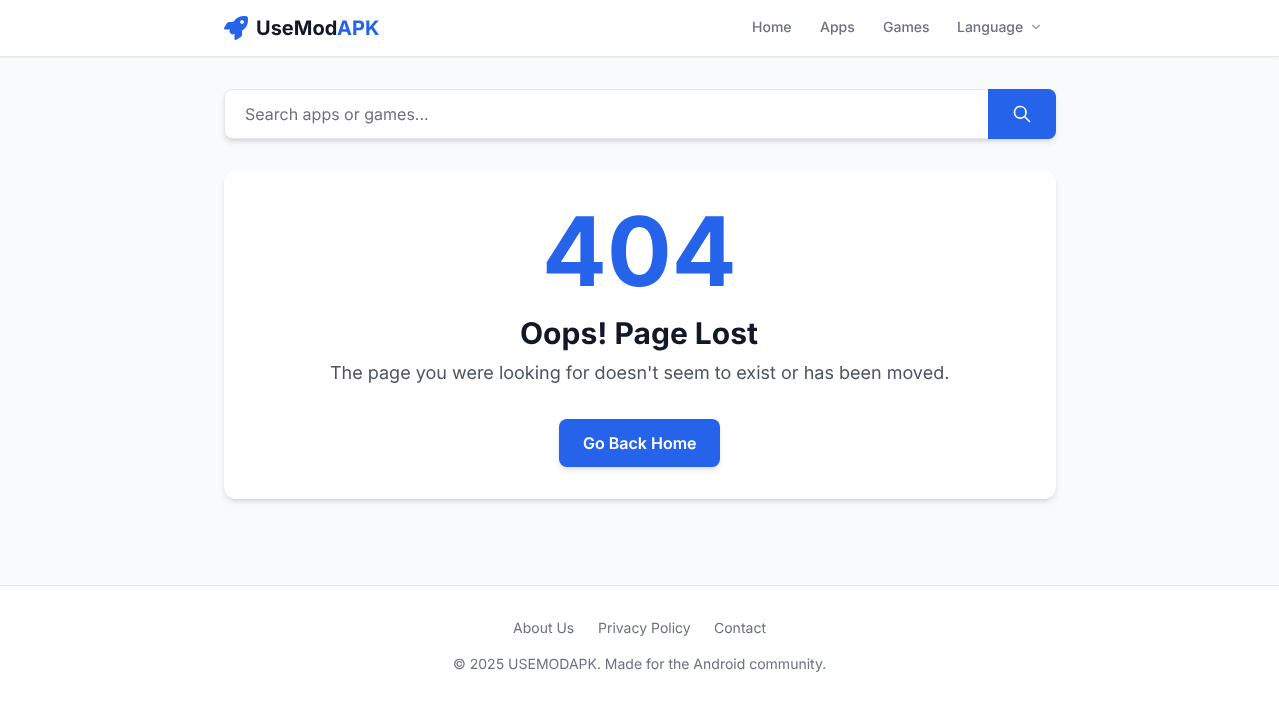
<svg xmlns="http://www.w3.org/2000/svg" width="1279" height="706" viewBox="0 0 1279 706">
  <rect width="100%" height="100%" fill="#f9fafb"/>
  <path d="M0 1h1279v57H0z" fill="#0000000d" filter="blur(1px)"/>
  <path d="M0 0h1279v56H0z" fill="#fff"/>
  <path d="M0 56h1279v1H0z" fill="#e5e7eb"/>
  <image x="224" y="16" width="24" height="24" href="img/1.png"/>
  <image x="1032" y="24" width="8" height="6" href="img/2.png"/>
  <rect x="226" y="93" width="828" height="46" rx="6" fill="#0000001a" filter="blur(2px)"/>
  <rect x="225" y="94" width="830" height="48" rx="7" fill="#0000001a" filter="blur(3px)"/>
  <path d="M232 90H988V138H232C228 138 225 135 225 131V97C225 93 228 90 232 90Z" fill="#fff"/>
  <path d="M232 89H988V139H232C228 139 224 135 224 131V97C224 93 228 89 232 89ZM232 90H988V138H232C228 138 225 135 225 131V97C225 93 228 90 232 90Z" fill="#e5e7eb" fill-rule="evenodd"/>
  <path d="M988 89H1048C1052.5 89 1056 92.5 1056 97V131C1056 135.5 1052.5 139 1048 139H988Z" fill="#2563eb"/>
  <path d="M1029.5 121.5L1024.5 116.5M1026 112.5C1026 120 1014.5 120 1014.5 112.5C1014.5 104.5 1026 104.5 1026 112.5Z" fill="none" stroke="#fff" stroke-width="1.7" stroke-linecap="round" stroke-linejoin="round"/>
  <rect x="226" y="175" width="828" height="324" rx="10" fill="#0000001a" filter="blur(2px)"/>
  <rect x="225" y="176" width="830" height="326" rx="11" fill="#0000001a" filter="blur(3px)"/>
  <rect x="224" y="171" width="832" height="328" rx="12" fill="#fff"/>
  <rect x="561" y="423" width="157" height="44" rx="6" fill="#0000001a" filter="blur(2px)"/>
  <rect x="560" y="424" width="159" height="46" rx="7" fill="#0000001a" filter="blur(3px)"/>
  <rect x="559" y="419" width="161" height="48" rx="8" fill="#2563eb"/>
  <path d="M0 586h1279v120H0z" fill="#fff"/>
  <path d="M0 585h1279v1H0z" fill="#e5e7eb"/>
  <text x="256" y="35" font-family="Inter" font-size="20" font-weight="bold" fill="#111827">UseMod</text>
  <text x="337" y="35" font-family="Inter" font-size="20" font-weight="bold" fill="#2563eb">APK</text>
  <g font-family="Inter" font-size="14" font-weight="500" fill="#6b7280">
    <text x="752" y="32">Home</text>
    <text x="820" y="32">Apps</text>
    <text x="883" y="32">Games</text>
    <text x="957" y="32">Language</text>
  </g>
  <text x="245" y="120" font-family="Inter" font-size="16" fill="#6b7280">Search apps or games...</text>
  <text x="542" y="286" font-family="Inter" font-size="96" font-weight="bold" fill="#2563eb">404</text>
  <text x="520" y="344" font-family="Inter" font-size="30" font-weight="bold" fill="#111827">Oops! Page Lost</text>
  <text x="330" y="379" font-family="Inter" font-size="18" fill="#4b5563">The page you were looking for doesn't seem to exist or has been moved.</text>
  <text x="583" y="449" font-family="Inter" font-size="16" font-weight="600" fill="#fff">Go Back Home</text>
  <g font-family="Inter" font-size="14" fill="#6b7280">
    <text x="513" y="633">About Us</text>
    <text x="598" y="633">Privacy Policy</text>
    <text x="714" y="633">Contact</text>
    <text x="453" y="669">© 2025 USEMODAPK. Made for the Android community.</text>
  </g>
</svg>
